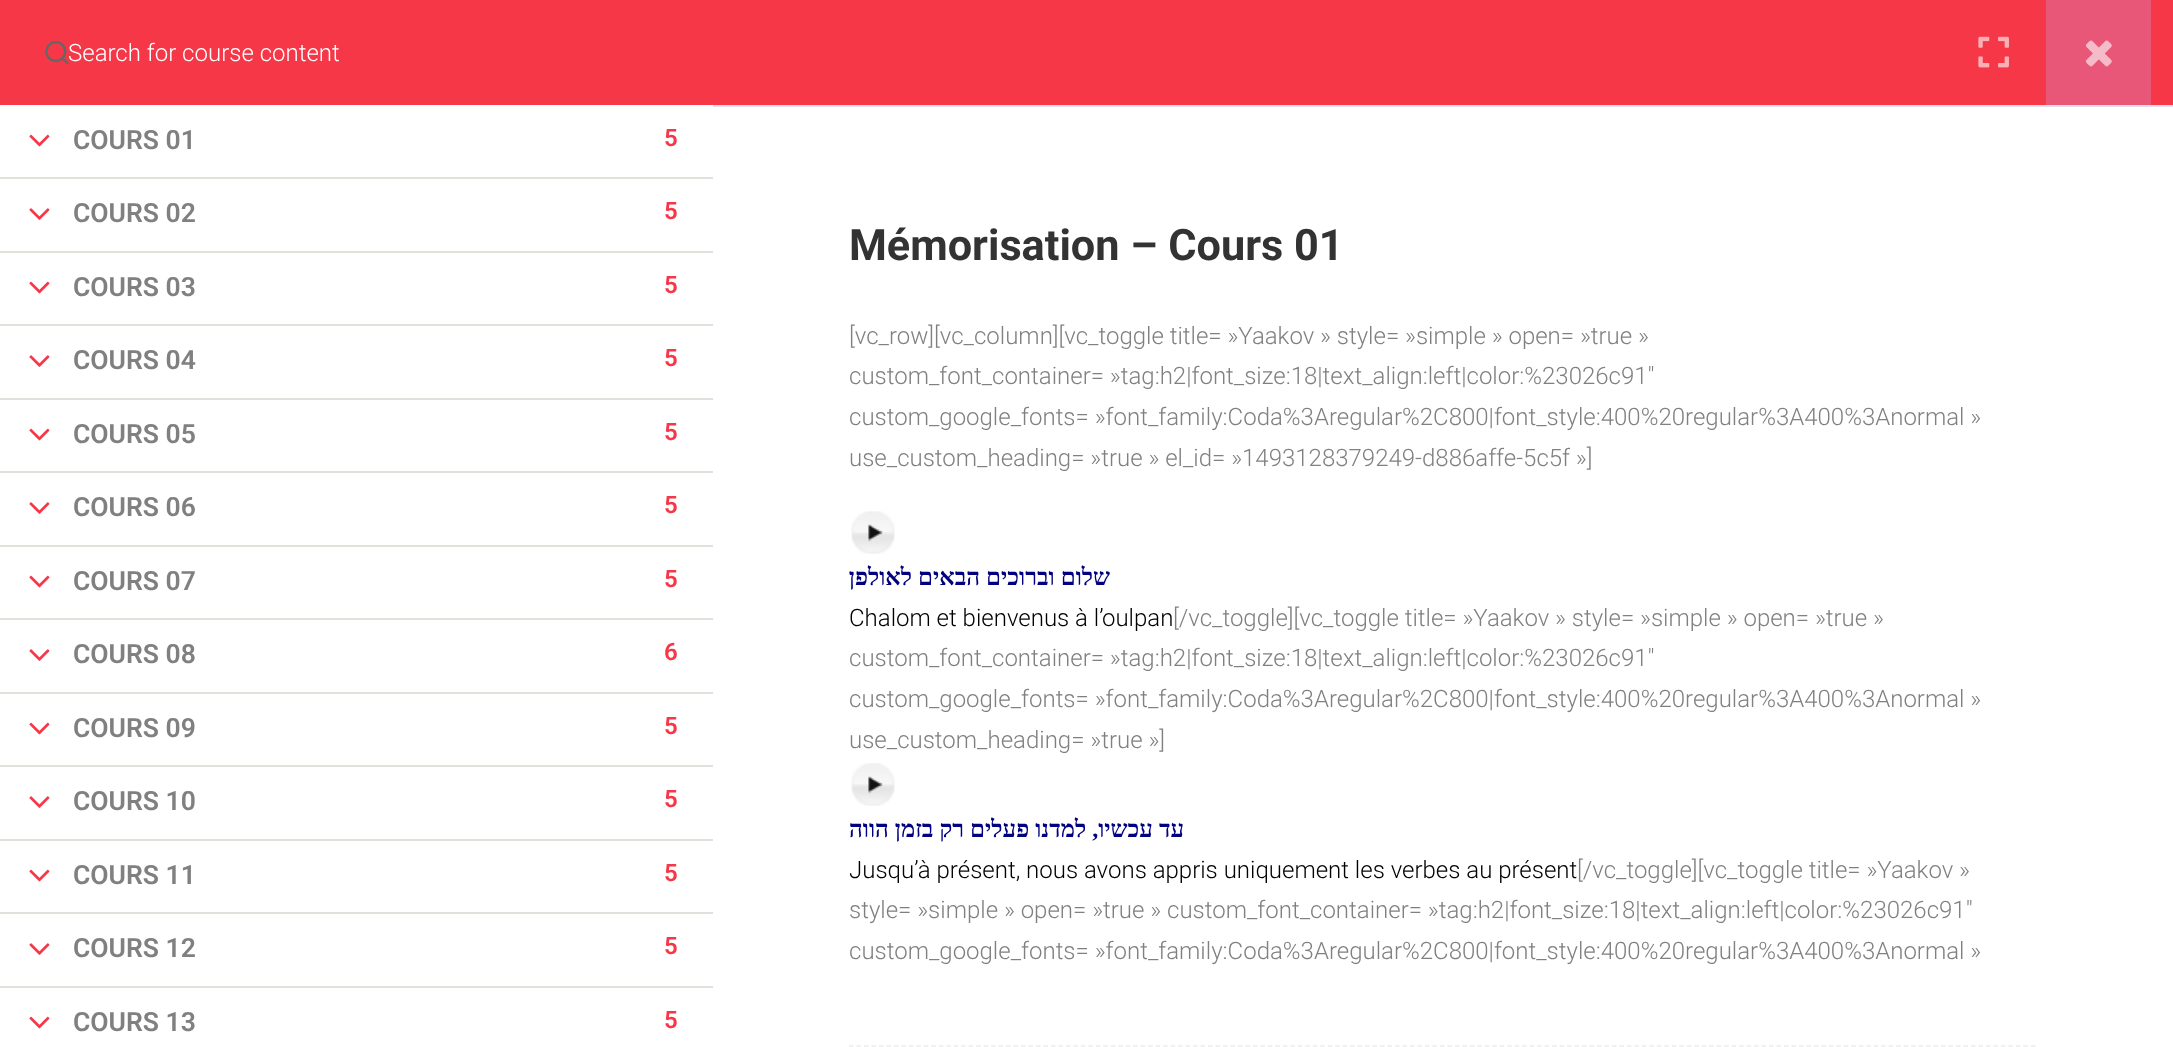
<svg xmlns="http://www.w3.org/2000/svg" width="2173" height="1047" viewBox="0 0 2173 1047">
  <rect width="100%" height="100%" fill="#fff"/>
  <path d="M0 0h2173v105H0z" fill="#f53748"/>
  <path d="M0 177h713v2H0z" fill="#e2e0db"/>
  <image x="29" y="134" width="21" height="13" href="img/2.png"/>
  <path d="M0 251h713v2H0z" fill="#e2e0db"/>
  <image x="29" y="208" width="21" height="12" href="img/3.png"/>
  <path d="M0 324h713v2H0z" fill="#e2e0db"/>
  <image x="29" y="281" width="21" height="13" href="img/2.png"/>
  <path d="M0 398h713v2H0z" fill="#e2e0db"/>
  <image x="29" y="355" width="21" height="12" href="img/3.png"/>
  <path d="M0 471h713v2H0z" fill="#e2e0db"/>
  <image x="29" y="428" width="21" height="13" href="img/2.png"/>
  <path d="M0 545h713v2H0z" fill="#e2e0db"/>
  <image x="29" y="502" width="21" height="12" href="img/3.png"/>
  <path d="M0 618h713v2H0z" fill="#e2e0db"/>
  <image x="29" y="575" width="21" height="13" href="img/2.png"/>
  <path d="M0 692h713v2H0z" fill="#e2e0db"/>
  <image x="29" y="649" width="21" height="12" href="img/3.png"/>
  <path d="M0 765h713v2H0z" fill="#e2e0db"/>
  <image x="29" y="722" width="21" height="13" href="img/2.png"/>
  <path d="M0 839h713v2H0z" fill="#e2e0db"/>
  <image x="29" y="796" width="21" height="12" href="img/3.png"/>
  <path d="M0 912h713v2H0z" fill="#e2e0db"/>
  <image x="29" y="869" width="21" height="13" href="img/2.png"/>
  <path d="M0 986h713v2H0z" fill="#e2e0db"/>
  <image x="29" y="943" width="21" height="12" href="img/3.png"/>
  <image x="29" y="1016" width="21" height="13" href="img/2.png"/>
  <path d="M713 105h1460v2H713z" fill="#d9e0f1"/>
  <image x="1978" y="36" width="31" height="32" href="img/4.png"/>
  <path d="M2046 0h105v105H2046z" fill="#e85678"/>
  <image x="2085" y="40" width="27" height="27" href="img/5.png"/>
  <image x="851" y="511" width="44" height="43" href="img/6.png"/>
  <image x="851" y="763" width="44" height="43" href="img/6.png"/>
  <path d="M849 1046H2037" fill="none" stroke="#ebebeb" stroke-width="1.5" stroke-dasharray="4.5 2.98"/>
  <text x="68" y="61" font-family="Roboto" font-size="24" font-weight="300" fill="#fff">Search for course content</text>
  <image x="45" y="41" width="24" height="24" href="img/1.png"/>
  <text x="73" y="149" font-family="Roboto" font-size="26.5" font-weight="600" fill="#808080">COURS 01</text>
  <text x="664" y="146" font-family="Roboto" font-size="24" font-weight="600" fill="#f53748">5</text>
  <text x="73" y="222" font-family="Roboto" font-size="26.5" font-weight="600" fill="#808080">COURS 02</text>
  <text x="664" y="219" font-family="Roboto" font-size="24" font-weight="600" fill="#f53748">5</text>
  <text x="73" y="296" font-family="Roboto" font-size="26.5" font-weight="600" fill="#808080">COURS 03</text>
  <text x="664" y="293" font-family="Roboto" font-size="24" font-weight="600" fill="#f53748">5</text>
  <text x="73" y="369" font-family="Roboto" font-size="26.5" font-weight="600" fill="#808080">COURS 04</text>
  <text x="664" y="366" font-family="Roboto" font-size="24" font-weight="600" fill="#f53748">5</text>
  <text x="73" y="443" font-family="Roboto" font-size="26.5" font-weight="600" fill="#808080">COURS 05</text>
  <text x="664" y="440" font-family="Roboto" font-size="24" font-weight="600" fill="#f53748">5</text>
  <text x="73" y="516" font-family="Roboto" font-size="26.5" font-weight="600" fill="#808080">COURS 06</text>
  <text x="664" y="513" font-family="Roboto" font-size="24" font-weight="600" fill="#f53748">5</text>
  <text x="73" y="590" font-family="Roboto" font-size="26.5" font-weight="600" fill="#808080">COURS 07</text>
  <text x="664" y="587" font-family="Roboto" font-size="24" font-weight="600" fill="#f53748">5</text>
  <text x="73" y="663" font-family="Roboto" font-size="26.5" font-weight="600" fill="#808080">COURS 08</text>
  <text x="664" y="660" font-family="Roboto" font-size="24" font-weight="600" fill="#f53748">6</text>
  <text x="73" y="737" font-family="Roboto" font-size="26.5" font-weight="600" fill="#808080">COURS 09</text>
  <text x="664" y="734" font-family="Roboto" font-size="24" font-weight="600" fill="#f53748">5</text>
  <text x="73" y="810" font-family="Roboto" font-size="26.5" font-weight="600" fill="#808080">COURS 10</text>
  <text x="664" y="807" font-family="Roboto" font-size="24" font-weight="600" fill="#f53748">5</text>
  <text x="73" y="884" font-family="Roboto" font-size="26.5" font-weight="600" fill="#808080">COURS 11</text>
  <text x="664" y="881" font-family="Roboto" font-size="24" font-weight="600" fill="#f53748">5</text>
  <text x="73" y="957" font-family="Roboto" font-size="26.5" font-weight="600" fill="#808080">COURS 12</text>
  <text x="664" y="954" font-family="Roboto" font-size="24" font-weight="600" fill="#f53748">5</text>
  <text x="73" y="1031" font-family="Roboto" font-size="26.5" font-weight="600" fill="#808080">COURS 13</text>
  <text x="664" y="1028" font-family="Roboto" font-size="24" font-weight="600" fill="#f53748">5</text>
  <text x="849" y="260" font-family="Roboto" font-size="43.25" font-weight="bold" fill="#333">Mémorisation – Cours 01</text>
  <g font-family="Roboto" font-size="24" font-weight="300" fill="#808080">
    <text x="849" y="344">[vc_row][vc_column][vc_toggle title= »Yaakov » style= »simple » open= »true »</text>
    <text x="849" y="384">custom_font_container= »tag:h2|font_size:18|text_align:left|color:%23026c91″</text>
    <text x="849" y="425">custom_google_fonts= »font_family:Coda%3Aregular%2C800|font_style:400%20regular%3A400%3Anormal »</text>
    <text x="849" y="466">use_custom_heading= »true » el_id= »1493128379249-d886affe-5c5f »]</text>
  </g>
  <text x="1110" y="585" font-family="Liberation Serif" font-size="24" font-weight="bold" direction="rtl" fill="#000080">שלום וברוכים הבאים לאולפן</text>
  <text x="849" y="626" font-family="Roboto" font-size="24" font-weight="300" fill="#000">Chalom et bienvenus à l’oulpan</text>
  <g font-family="Roboto" font-size="24" font-weight="300" fill="#808080">
    <text x="1173" y="626">[/vc_toggle][vc_toggle title= »Yaakov » style= »simple » open= »true »</text>
    <text x="849" y="666">custom_font_container= »tag:h2|font_size:18|text_align:left|color:%23026c91″</text>
    <text x="849" y="707">custom_google_fonts= »font_family:Coda%3Aregular%2C800|font_style:400%20regular%3A400%3Anormal »</text>
    <text x="849" y="748">use_custom_heading= »true »]</text>
  </g>
  <text x="1184" y="837" font-family="Liberation Serif" font-size="24" font-weight="bold" direction="rtl" fill="#000080">עד עכשיו, למדנו פעלים רק בזמן הווה</text>
  <text x="849" y="878" font-family="Roboto" font-size="24" font-weight="300" fill="#000">Jusqu’à présent, nous avons appris uniquement les verbes au présent</text>
  <g font-family="Roboto" font-size="24" font-weight="300" fill="#808080">
    <text x="1577" y="878">[/vc_toggle][vc_toggle title= »Yaakov »</text>
    <text x="849" y="918">style= »simple » open= »true » custom_font_container= »tag:h2|font_size:18|text_align:left|color:%23026c91″</text>
    <text x="849" y="959">custom_google_fonts= »font_family:Coda%3Aregular%2C800|font_style:400%20regular%3A400%3Anormal »</text>
  </g>
</svg>
